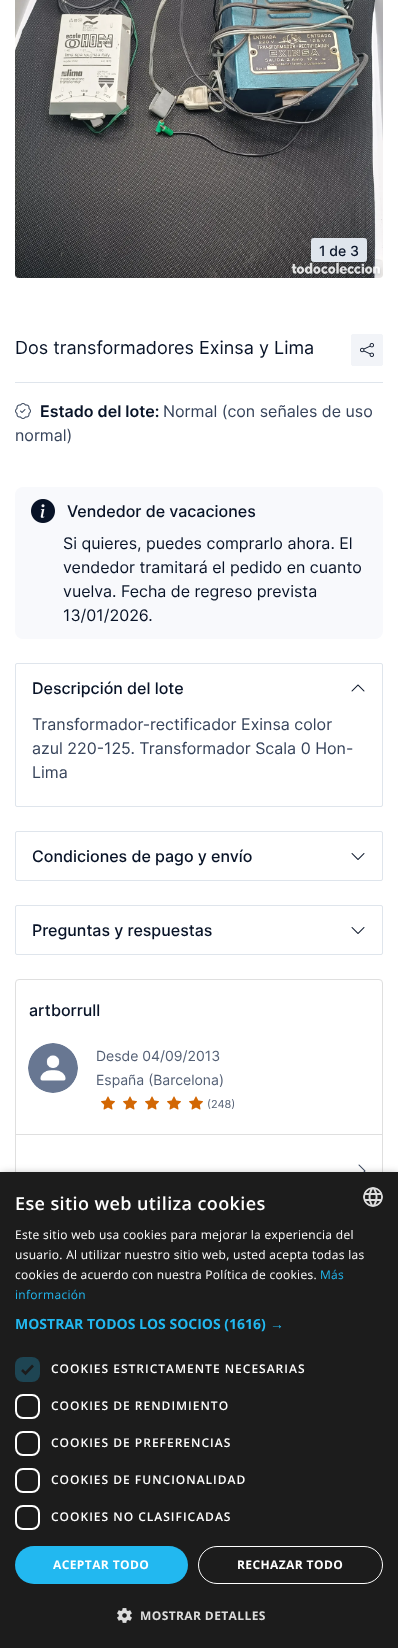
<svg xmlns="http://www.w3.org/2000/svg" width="398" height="1648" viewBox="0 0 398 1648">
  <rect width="100%" height="100%" fill="#fff"/>
  <image x="15" y="0" width="368" height="278" href="img/1.png"/>
  <rect x="311.5" y="238.5" width="55" height="23" rx="2" fill="#dfe5ec" stroke="#dfe5ec"/>
  <rect x="351.5" y="334.5" width="31" height="31" rx="1.5" fill="#f2f4f8" stroke="#f2f4f8"/>
  <image x="360" y="343" width="14" height="14" href="img/2.png"/>
  <path d="M15 382h368v1H15z" fill="#dfe5ec"/>
  <image x="15" y="403" width="16" height="16" href="img/3.png"/>
  <rect x="15" y="487" width="368" height="152" rx="8" fill="#f8f9fc"/>
  <image x="31" y="499" width="24" height="24" href="img/4.png"/>
  <rect x="15.5" y="663.5" width="367" height="143" rx="1.5" fill="none" stroke="#dfe5ec"/>
  <image x="351" y="684" width="14" height="8" href="img/5.png"/>
  <rect x="15.5" y="831.5" width="367" height="49" rx="1.5" fill="none" stroke="#dfe5ec"/>
  <image x="351" y="853" width="14" height="7" href="img/6.png"/>
  <rect x="15.5" y="905.5" width="367" height="49" rx="1.5" fill="none" stroke="#dfe5ec"/>
  <image x="351" y="927" width="14" height="7" href="img/6.png"/>
  <rect x="15.5" y="979.5" width="367" height="437" rx="3.5" fill="none" stroke="#dfdfdf"/>
  <path d="M16 1134h366v1H16z" fill="#dfdfdf"/>
  <image x="28" y="1043" width="50" height="50" href="img/7.png"/>
  <image x="101" y="1096" width="14" height="14" href="img/8.png"/>
  <image x="123" y="1096" width="14" height="14" href="img/8.png"/>
  <image x="145" y="1096" width="14" height="14" href="img/8.png"/>
  <image x="167" y="1096" width="14" height="14" href="img/8.png"/>
  <image x="189" y="1096" width="14" height="14" href="img/8.png"/>
  <image x="358" y="1164" width="8" height="8" href="img/9.png"/>
  <path d="M1 1174h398v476H1z" fill="#00000059" filter="blur(4px)"/>
  <path d="M0 1172h398v476H0z" fill="#1c1c1c"/>
  <image x="363" y="1187" width="20" height="20" href="img/10.png"/>
  <rect x="15" y="1357" width="25" height="25" rx="8" fill="#1e4553"/>
  <path d="M22 1370L25.5 1373.5L33 1365.5" fill="none" stroke="#1c1c1c" stroke-width="2.6"/>
  <rect x="16" y="1395" width="23" height="23" rx="7" fill="none" stroke="#fff" stroke-width="2"/>
  <rect x="16" y="1432" width="23" height="23" rx="7" fill="none" stroke="#fff" stroke-width="2"/>
  <rect x="16" y="1469" width="23" height="23" rx="7" fill="none" stroke="#fff" stroke-width="2"/>
  <rect x="16" y="1506" width="23" height="23" rx="7" fill="none" stroke="#fff" stroke-width="2"/>
  <rect x="15" y="1546" width="173" height="38" rx="19" fill="#22b8f0"/>
  <rect x="198.5" y="1546.5" width="184" height="37" rx="18.5" fill="none" stroke="#fff"/>
  <image x="117" y="1608" width="15" height="15" href="img/11.png"/>
  <text x="319" y="256" font-family="Inter" font-size="14" font-weight="500" fill="#081327">1 de 3</text>
  <text x="15" y="354" font-family="Inter" font-size="18" fill="#081327">Dos transformadores Exinsa y Lima</text>
  <text x="40" y="417" font-family="Inter" font-size="16" font-weight="600" fill="#081327">Estado del lote:</text>
  <g font-family="Inter" font-size="16" fill="#36435a">
    <text x="163" y="417">Normal (con señales de uso</text>
    <text x="15" y="441">normal)</text>
  </g>
  <text x="67" y="517" font-family="Inter" font-size="16" font-weight="500" fill="#081327">Vendedor de vacaciones</text>
  <g font-family="Inter" font-size="16" fill="#081327">
    <text x="63" y="549">Si quieres, puedes comprarlo ahora. El</text>
    <text x="63" y="573">vendedor tramitará el pedido en cuanto</text>
    <text x="63" y="597">vuelva. Fecha de regreso prevista</text>
    <text x="63" y="621">13/01/2026.</text>
  </g>
  <text x="32" y="694" font-family="Inter" font-size="16" font-weight="500" fill="#081327">Descripción del lote</text>
  <g font-family="Inter" font-size="16" fill="#36435a">
    <text x="32" y="730">Transformador-rectificador Exinsa color</text>
    <text x="32" y="754">azul 220-125. Transformador Scala 0 Hon-</text>
    <text x="32" y="778">Lima</text>
  </g>
  <g font-family="Inter" font-size="16" font-weight="500" fill="#081327">
    <text x="32" y="862">Condiciones de pago y envío</text>
    <text x="32" y="936">Preguntas y respuestas</text>
    <text x="29" y="1016">artborrull</text>
  </g>
  <g font-family="Inter" font-size="14" fill="#535f74">
    <text x="96" y="1061">Desde 04/09/2013</text>
    <text x="96" y="1085">España (Barcelona)</text>
  </g>
  <text x="207" y="1108" font-family="Inter" font-size="11" fill="#535f74">(248)</text>
  <text x="15" y="1210" font-family="Open Sans" font-size="18" font-weight="600" letter-spacing="0.4" fill="#fff">Ese sitio web utiliza cookies</text>
  <g font-family="Open Sans" font-size="12" letter-spacing="0.3" fill="#fff">
    <text x="15" y="1239">Este sitio web usa cookies para mejorar la experiencia del</text>
    <text x="15" y="1259">usuario. Al utilizar nuestro sitio web, usted acepta todas las</text>
    <text x="15" y="1279">cookies de acuerdo con nuestra Política de cookies.</text>
  </g>
  <g font-family="Open Sans" font-size="12" letter-spacing="0.3" fill="#22b8f0">
    <text x="320" y="1279">Más</text>
    <text x="15" y="1299">información</text>
  </g>
  <text x="15" y="1329" font-family="Open Sans" font-size="14" font-weight="bold" fill="#22b8f0">MOSTRAR TODOS LOS SOCIOS (1616)</text>
  <text x="270" y="1329" font-family="Liberation Sans" font-size="14" font-weight="bold" fill="#22b8f0">→</text>
  <g font-family="Open Sans" font-size="12" font-weight="600" letter-spacing="1" fill="#fff">
    <text x="51" y="1373">COOKIES ESTRICTAMENTE NECESARIAS</text>
    <text x="51" y="1410">COOKIES DE RENDIMIENTO</text>
    <text x="51" y="1447">COOKIES DE PREFERENCIAS</text>
    <text x="51" y="1484">COOKIES DE FUNCIONALIDAD</text>
    <text x="51" y="1521">COOKIES NO CLASIFICADAS</text>
  </g>
  <g font-family="Open Sans" font-size="12" font-weight="bold" letter-spacing="0.4" fill="#fff">
    <text x="53" y="1569">ACEPTAR TODO</text>
    <text x="237" y="1569">RECHAZAR TODO</text>
  </g>
  <text x="140" y="1620" font-family="Open Sans" font-size="12" font-weight="bold" letter-spacing="0.4" fill="#ddd">MOSTRAR DETALLES</text>
</svg>
